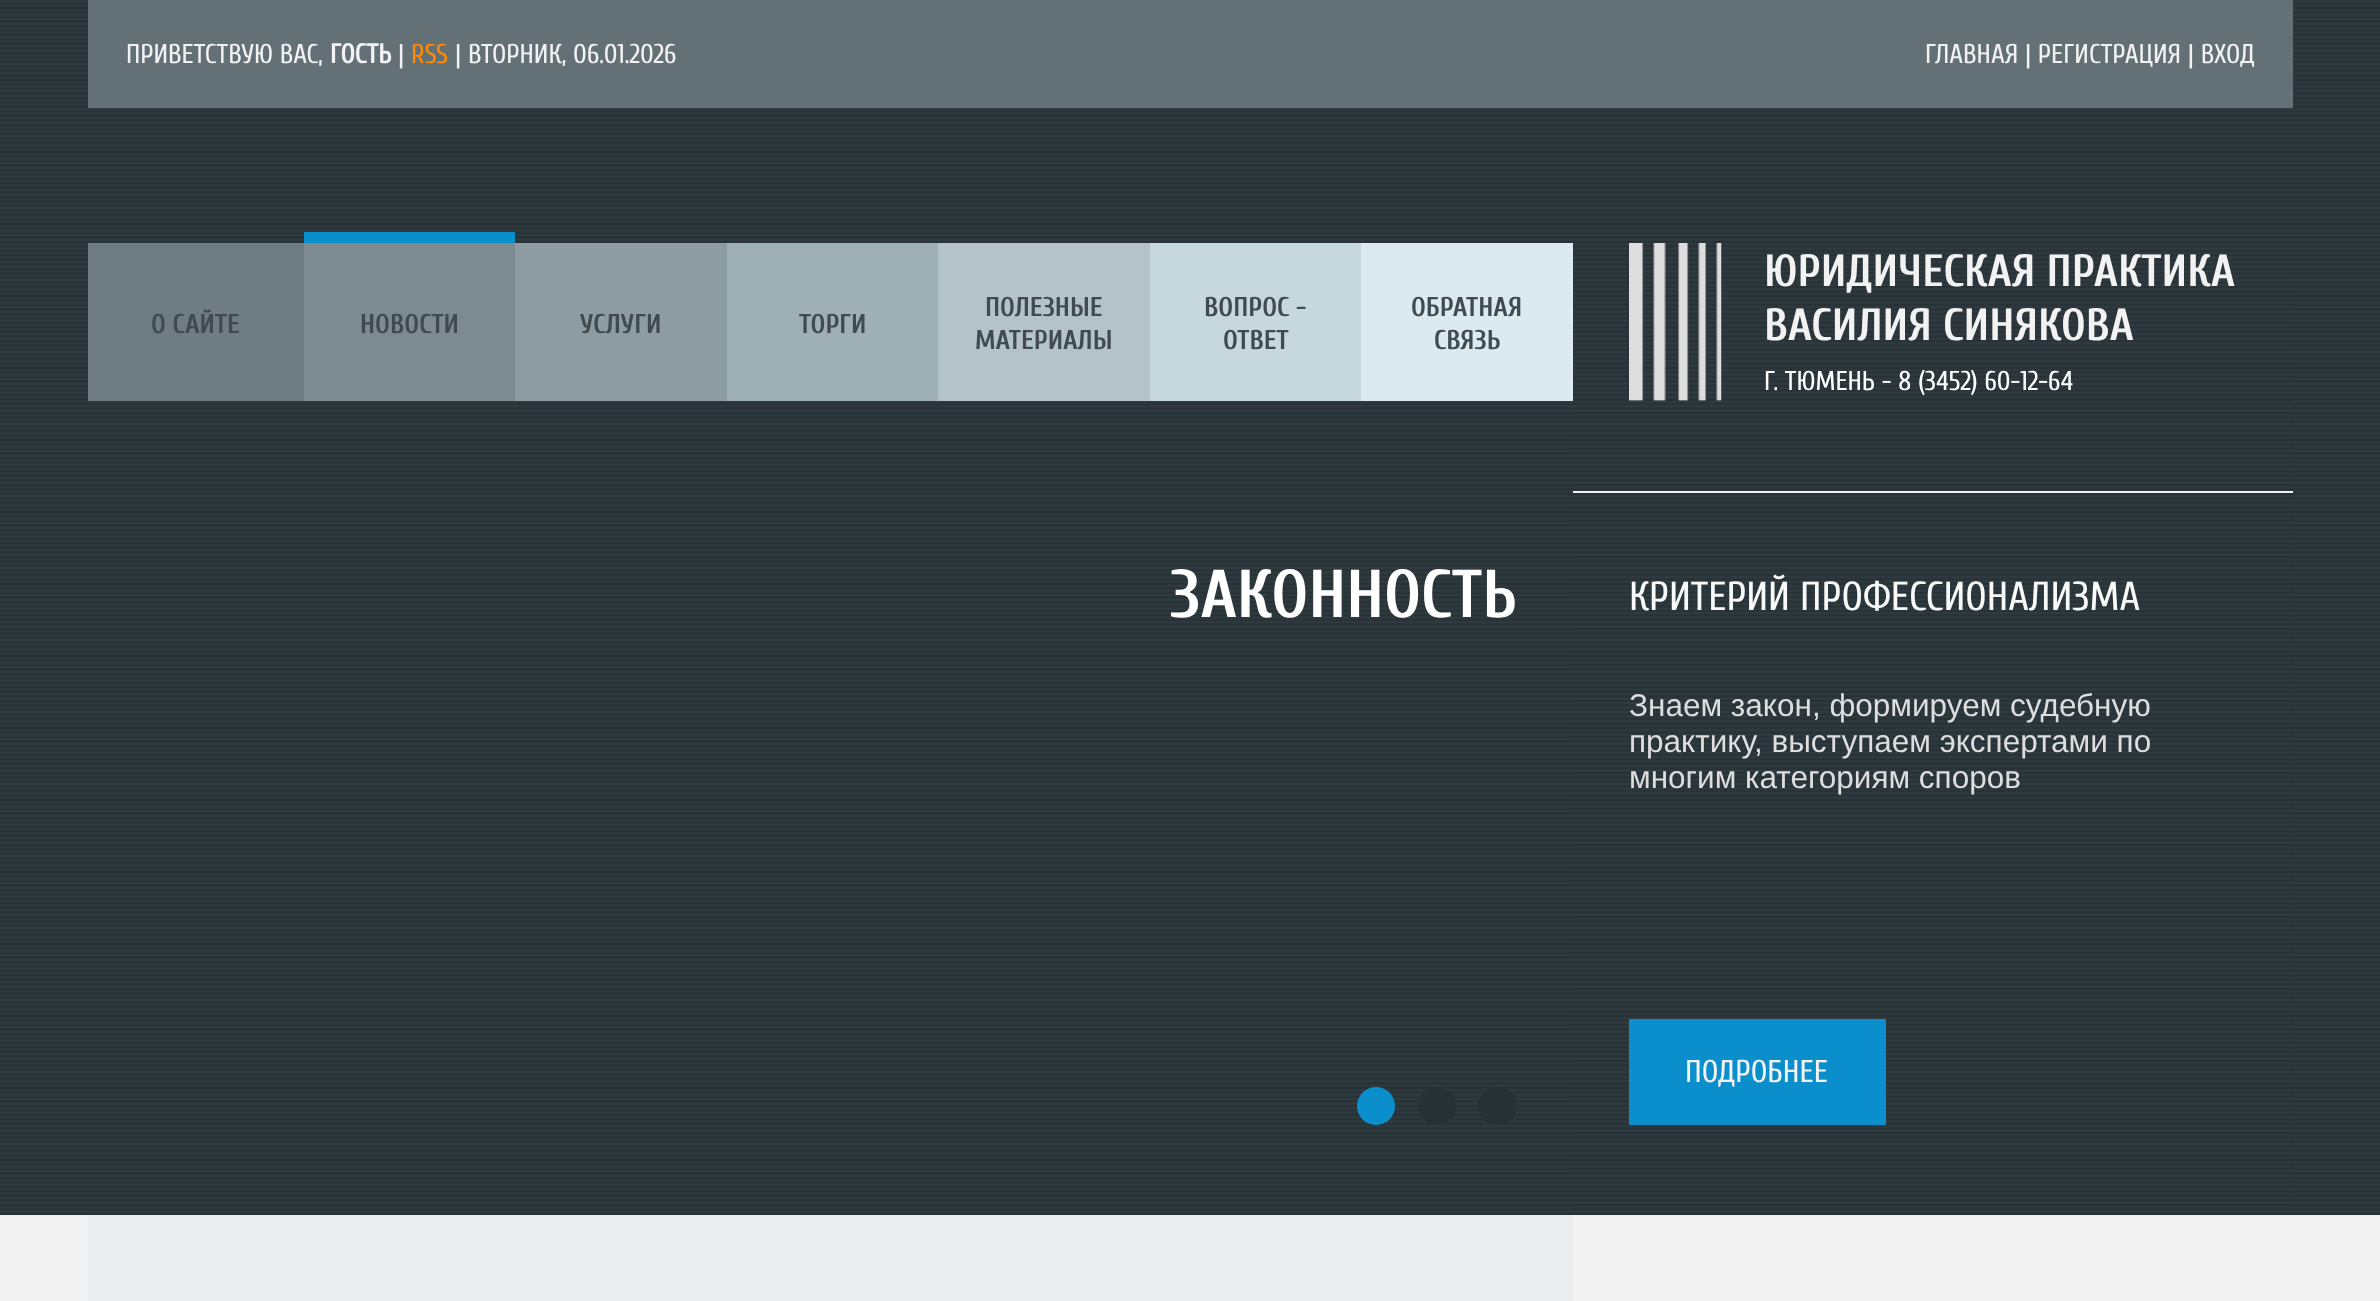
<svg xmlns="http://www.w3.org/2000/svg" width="2380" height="1301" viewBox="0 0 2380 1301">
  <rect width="100%" height="100%" fill="#f2f2f2"/>
  <path d="M0 1213h2380v2H0z" fill="#273135"/>
  <image x="0" y="0" width="2380" height="1213" href="img/1.png"/>
  <path d="M88 0h2205v108H88z" fill="#637075"/>
  <path d="M88 243h216v158H88z" fill="#6f7c81"/>
  <path d="M304 243h211v158H304z" fill="#7d8b91"/>
  <path d="M304 232h211v11H304z" fill="#0a8fcc"/>
  <path d="M515 243h212v158H515z" fill="#8c9ca2"/>
  <path d="M727 243h211v158H727z" fill="#9eafb6"/>
  <path d="M938 243h212v158H938z" fill="#b3c3c9"/>
  <path d="M1150 243h211v158H1150z" fill="#c6d7dd"/>
  <path d="M1361 243h212v158H1361z" fill="#daeaf0"/>
  <path d="M1573 243h720v970H1573z" fill="#273135"/>
  <image x="1573" y="243" width="720" height="156" href="img/2.png"/>
  <image x="1629" y="243" width="93" height="158" href="img/3.png"/>
  <image x="1572" y="400" width="721" height="813" href="img/4.png"/>
  <path d="M866 491h707v1H866z" fill="#2d383d"/>
  <path d="M1573 491h720v2H1573z" fill="#f2f2f2"/>
  <path d="M1629 1019h257v106H1629z" fill="#0a8fcc"/>
  <circle cx="1376" cy="1106" r="19" fill="#0a8fcc"/>
  <circle cx="1437" cy="1106" r="19" fill="#273135"/>
  <rect x="1478" y="1087" width="39" height="38" rx="19" fill="#273135"/>
  <path d="M88 1215h1485v86H88z" fill="#ecedee"/>
  <text x="126" y="63" font-family="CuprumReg" font-size="27" fill="#f2f2f2">ПРИВЕТСТВУЮ ВАС,</text>
  <text x="330" y="63" font-family="CuprumReg" font-size="27" font-weight="bold" fill="#f2f2f2">ГОСТЬ</text>
  <text x="398" y="63" font-family="CuprumReg" font-size="27" fill="#f2f2f2">|</text>
  <text x="411" y="63" font-family="CuprumReg" font-size="27" fill="#ff8a00">RSS</text>
  <g font-family="CuprumReg" font-size="27" fill="#f2f2f2">
    <text x="455" y="63">| ВТОРНИК, 06.01.2026</text>
    <text x="1925" y="63">ГЛАВНАЯ | РЕГИСТРАЦИЯ | ВХОД</text>
  </g>
  <g font-family="Cuprum" font-size="27" font-weight="bold" fill="#414a4e">
    <text x="151" y="333">О САЙТЕ</text>
    <text x="360" y="333">НОВОСТИ</text>
    <text x="580" y="333">УСЛУГИ</text>
    <text x="799" y="333">ТОРГИ</text>
    <text x="985" y="316">ПОЛЕЗНЫЕ</text>
    <text x="975" y="349">МАТЕРИАЛЫ</text>
    <text x="1204" y="316">ВОПРОС -</text>
    <text x="1223" y="349">ОТВЕТ</text>
    <text x="1411" y="316">ОБРАТНАЯ</text>
    <text x="1434" y="349">СВЯЗЬ</text>
  </g>
  <g font-family="Cuprum" font-size="45" font-weight="bold" fill="#f2f2f2">
    <text x="1764" y="286">ЮРИДИЧЕСКАЯ ПРАКТИКА</text>
    <text x="1764" y="340">ВАСИЛИЯ СИНЯКОВА</text>
  </g>
  <text x="1764" y="390" font-family="CuprumReg" font-size="27" fill="#fff">Г. ТЮМЕНЬ - 8 (3452) 60-12-64</text>
  <text x="1170" y="617" font-family="Cuprum" font-size="67.5" font-weight="bold" fill="#fff">ЗАКОННОСТЬ</text>
  <text x="1629" y="610" font-family="CuprumReg" font-size="40.5" fill="#f8f9f9">КРИТЕРИЙ ПРОФЕССИОНАЛИЗМА</text>
  <g font-family="Liberation Sans" font-size="31.5" fill="#dedede">
    <text x="1629" y="716">Знаем закон, формируем судебную</text>
    <text x="1629" y="752">практику, выступаем экспертами по</text>
    <text x="1629" y="788">многим категориям споров</text>
  </g>
  <text x="1685" y="1082" font-family="CuprumReg" font-size="31.5" fill="#f2f2f2">ПОДРОБНЕЕ</text>
</svg>
